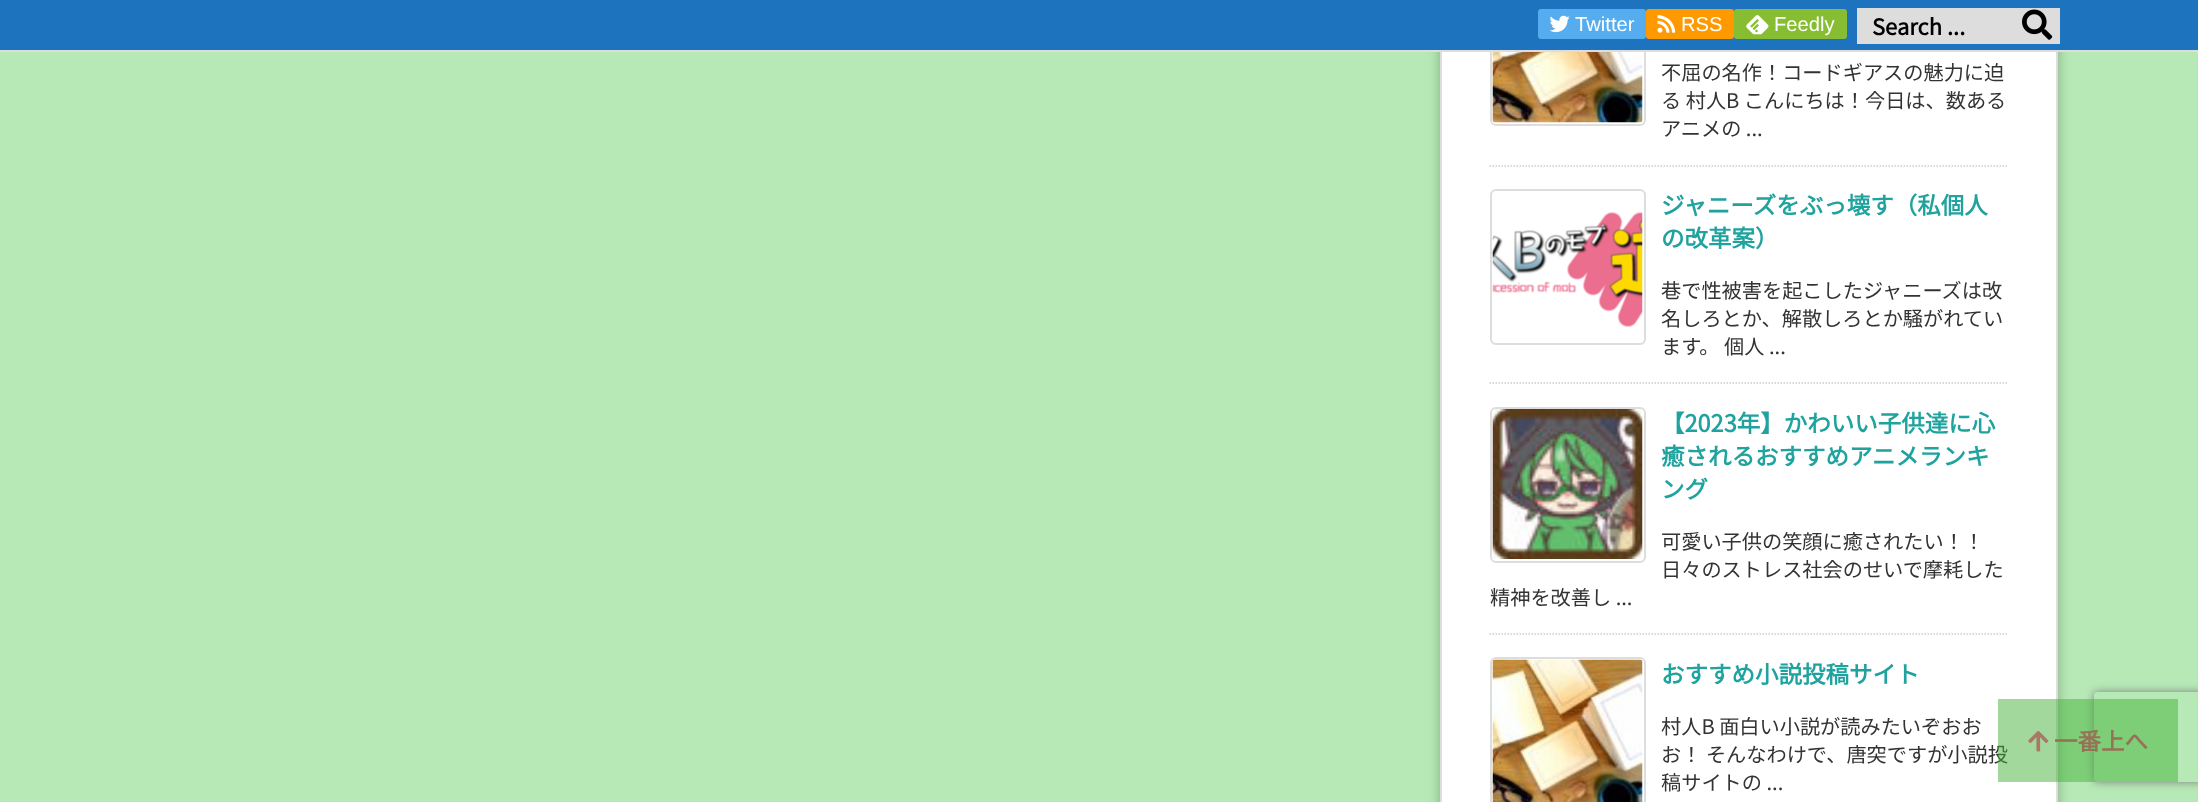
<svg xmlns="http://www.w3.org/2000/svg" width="2198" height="802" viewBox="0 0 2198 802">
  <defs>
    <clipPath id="clip1"><path d="M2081 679H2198V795H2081ZM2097 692H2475C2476.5 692 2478 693.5 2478 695V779C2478 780.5 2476.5 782 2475 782H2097C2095.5 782 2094 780.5 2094 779V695C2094 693.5 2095.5 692 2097 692Z" clip-rule="evenodd"/></clipPath>
  </defs>
  <rect width="100%" height="100%" fill="#b6e9b6"/>
  <path d="M1440 -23h618v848H1440z" fill="#0000001f" filter="blur(7.5px)"/>
  <path d="M1440 -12h618v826H1440z" fill="#00000029" filter="blur(4px)"/>
  <path d="M1442 52h614v750H1442z" fill="#fff"/>
  <path d="M1441 -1h616v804H1441z" fill="none" stroke="#ddd" stroke-width="2"/>
  <rect x="1491" y="-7" width="154" height="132" rx="5" fill="none" stroke="#ddd" stroke-width="2"/>
  <path d="M0 0h2198v50H0z" fill="#1e73be"/>
  <path d="M0 50h2198v2H0z" fill="#ddd"/>
  <rect x="1538" y="9" width="108" height="30" rx="3" fill="#55acee"/>
  <image x="1549" y="15" width="21" height="18" href="img/1.png"/>
  <rect x="1646" y="9" width="88" height="30" rx="3" fill="#fe9900"/>
  <image x="1657" y="15" width="19" height="18" href="img/2.png"/>
  <rect x="1734" y="9" width="113" height="30" rx="3" fill="#87bd33"/>
  <image x="1746" y="15" width="23" height="20" href="img/3.png"/>
  <path d="M1857 8h203v36H1857z" fill="#ddd"/>
  <image x="2022" y="9" width="31" height="31" href="img/4.png"/>
  <path d="M1489.5 166H2008.5" fill="none" stroke="#ccc" stroke-width="1.5" stroke-dasharray="1.5 1.5"/>
  <image x="1492" y="52" width="151" height="71" href="img/5.png"/>
  <path d="M1489.5 383H2008.5" fill="none" stroke="#ccc" stroke-width="1.5" stroke-dasharray="1.5 1.5"/>
  <rect x="1491" y="190" width="154" height="154" rx="5" fill="none" stroke="#ddd" stroke-width="2"/>
  <image x="1492" y="212" width="151" height="116" href="img/6.png"/>
  <path d="M1489.5 634H2008.5" fill="none" stroke="#ccc" stroke-width="1.5" stroke-dasharray="1.5 1.5"/>
  <rect x="1491" y="408" width="154" height="154" rx="5" fill="none" stroke="#ddd" stroke-width="2"/>
  <image x="1492" y="409" width="151" height="150" href="img/7.png"/>
  <rect x="1491" y="658" width="154" height="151" rx="5" fill="none" stroke="#ddd" stroke-width="2"/>
  <image x="1492" y="659" width="151" height="143" href="img/8.png"/>
  <g clip-path="url(#clip1)">
    <rect x="2094" y="692" width="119" height="90" rx="3" fill="#808080" filter="blur(4px)"/>
  </g>
  <g font-family="Liberation Sans" font-size="20.2" fill="#fff">
    <text x="1575" y="31">Twitter</text>
    <text x="1681" y="31">RSS</text>
    <text x="1774" y="31">Feedly</text>
  </g>
  <text x="1872" y="35" font-family="Noto Sans JP" font-size="22" font-weight="bold" fill="#000">Search ...</text>
  <g font-family="Noto Sans JP" font-size="20.2" font-weight="100" fill="#333">
    <text x="1661" y="80">不屈の名作！コードギアスの魅力に迫</text>
    <text x="1661" y="108">る 村人B こんにちは！今日は、数ある</text>
    <text x="1661" y="136">アニメの ...</text>
  </g>
  <g font-family="Noto Sans JP" font-size="23.5" font-weight="bold" fill="#20a39e">
    <text x="1661" y="214">ジャニーズをぶっ壊す（私個人</text>
    <text x="1661" y="247">の改革案）</text>
  </g>
  <g font-family="Noto Sans JP" font-size="20.2" font-weight="100" fill="#333">
    <text x="1661" y="298">巷で性被害を起こしたジャニーズは改</text>
    <text x="1661" y="326">名しろとか、解散しろとか騒がれてい</text>
    <text x="1661" y="354">ます。 個人 ...</text>
  </g>
  <g font-family="Noto Sans JP" font-size="23.5" font-weight="bold" fill="#20a39e">
    <text x="1661" y="432">【2023年】かわいい子供達に心</text>
    <text x="1661" y="465">癒されるおすすめアニメランキ</text>
    <text x="1661" y="498">ング</text>
  </g>
  <g font-family="Noto Sans JP" font-size="20.2" font-weight="100" fill="#333">
    <text x="1661" y="549">可愛い子供の笑顔に癒されたい！！</text>
    <text x="1661" y="577">日々のストレス社会のせいで摩耗した</text>
    <text x="1490" y="605">精神を改善し ...</text>
  </g>
  <text x="1661" y="683" font-family="Noto Sans JP" font-size="23.5" font-weight="bold" fill="#20a39e">おすすめ小説投稿サイト</text>
  <g font-family="Noto Sans JP" font-size="20.2" font-weight="100" fill="#333">
    <text x="1661" y="734">村人B 面白い小説が読みたいぞおお</text>
    <text x="1661" y="762">お！ そんなわけで、唐突ですが小説投</text>
    <text x="1661" y="790">稿サイトの ...</text>
  </g>
  <path d="M1998 699h180v83H1998z" fill="#45b23780"/>
  <image x="2028" y="730" width="21" height="22" href="img/9.png"/>
  <text x="2054" y="750" font-family="Noto Sans JP" font-size="23.5" font-weight="bold" fill="#977156">一番上へ</text>
</svg>
